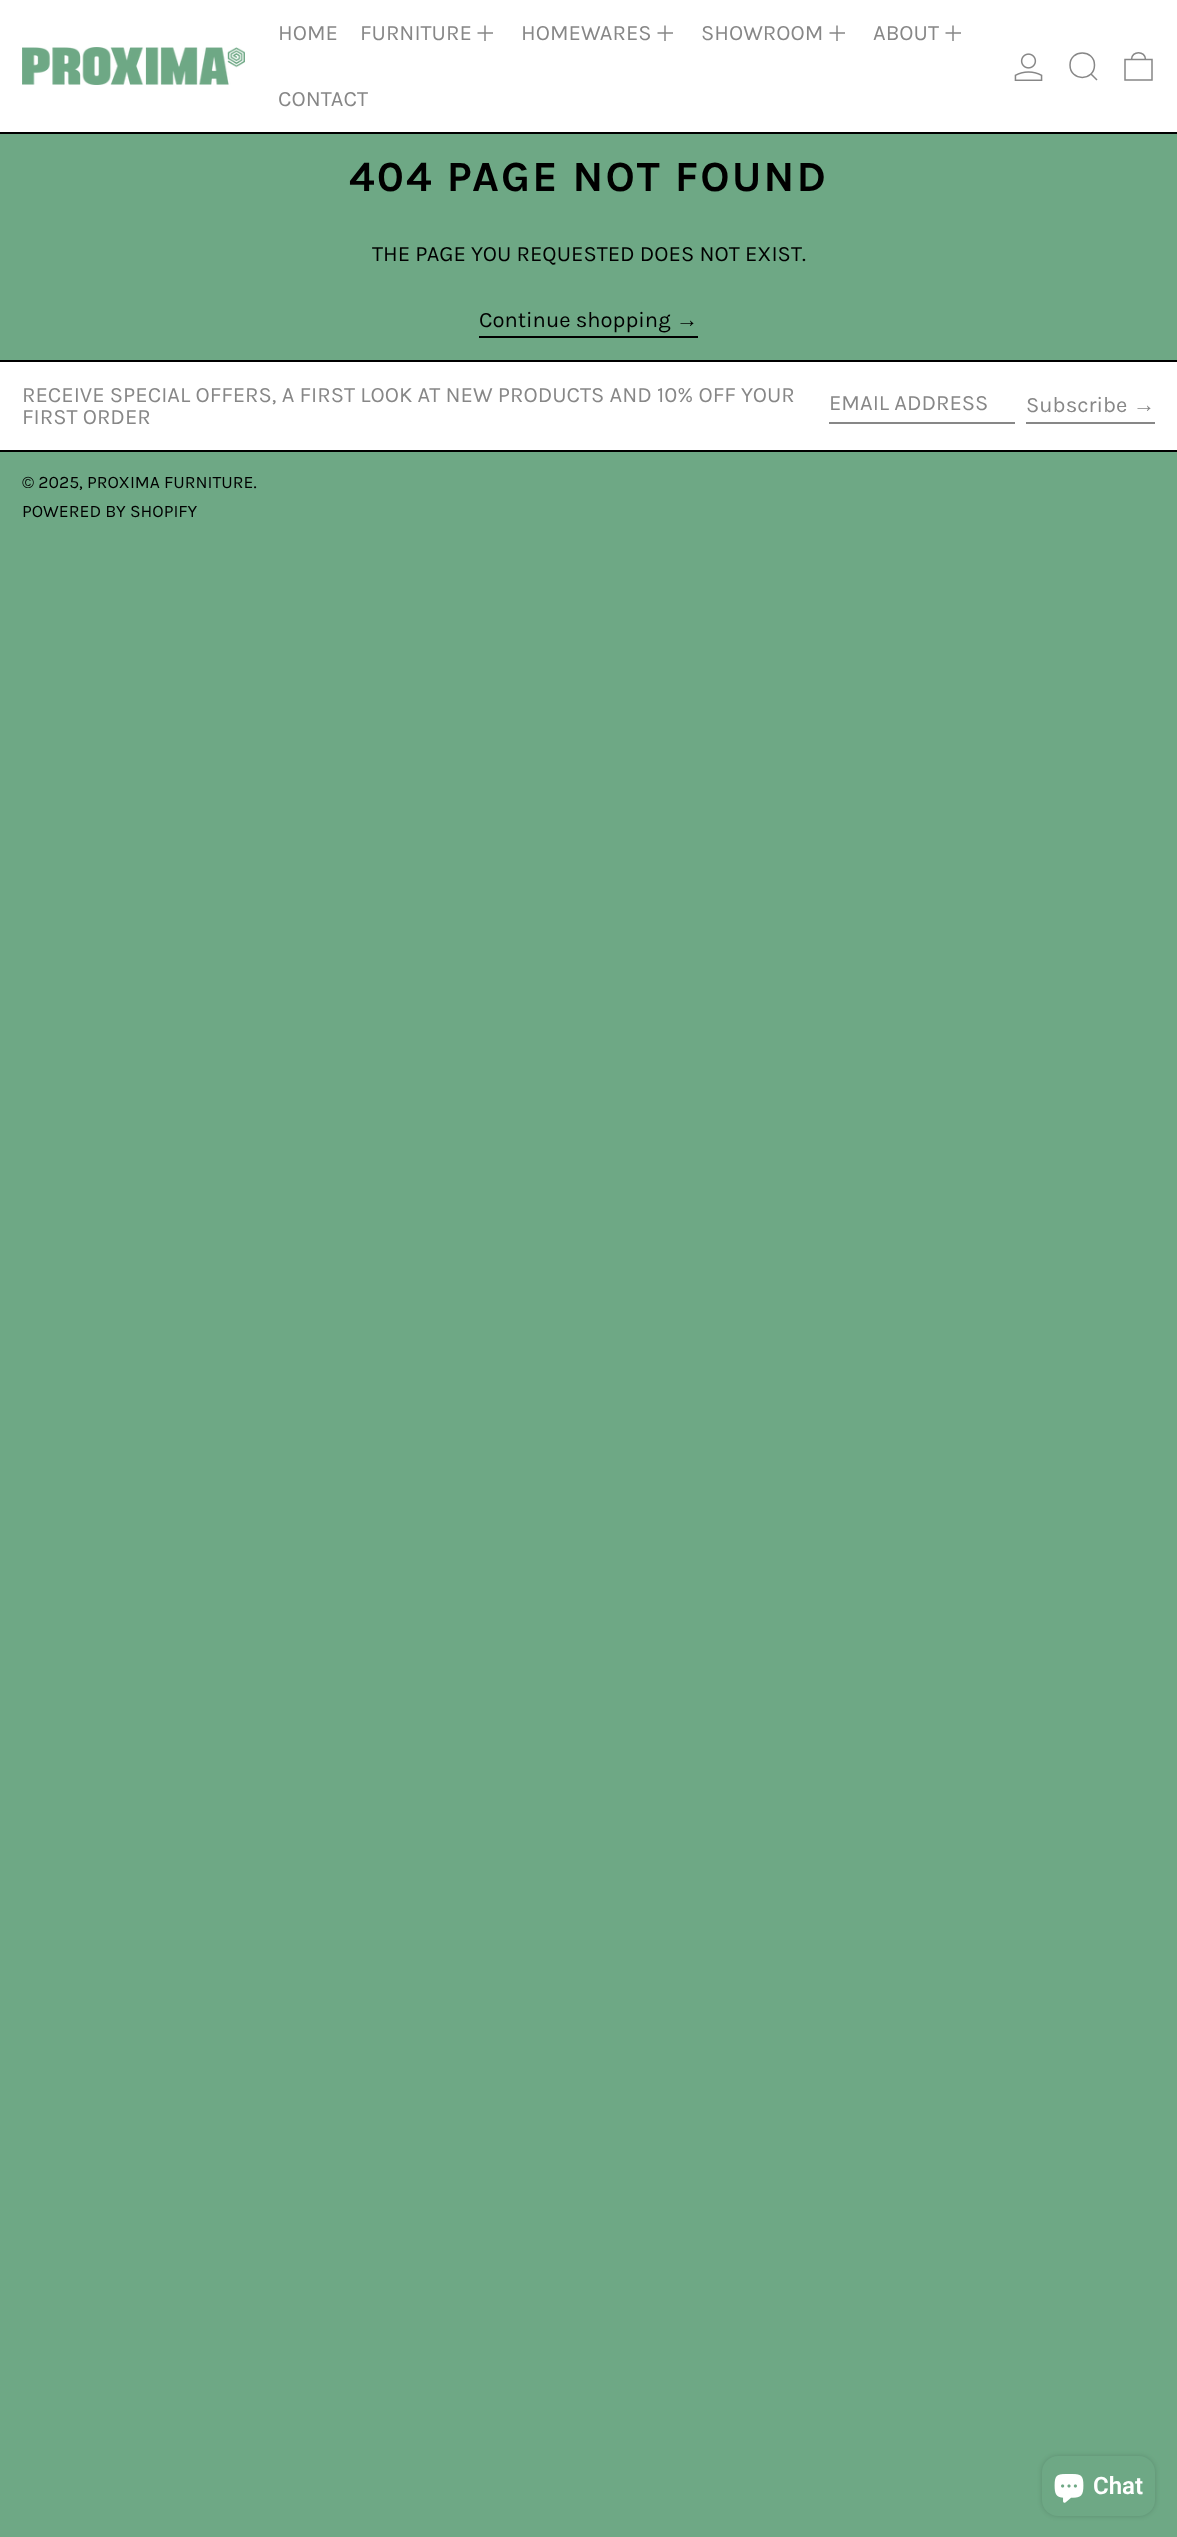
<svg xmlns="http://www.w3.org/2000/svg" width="1177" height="2537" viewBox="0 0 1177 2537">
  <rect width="100%" height="100%" fill="#6ea885"/>
  <path d="M0 0h1177v132H0z" fill="#fff"/>
  <path d="M0 132h1177v2H0z" fill="#000"/>
  <image x="22" y="47" width="223" height="38" href="img/1.png"/>
  <path d="M485 25.5V41M477.5 33H493" fill="none" stroke="#878787" stroke-width="1.5"/>
  <path d="M665 25.5V41M657.5 33H673" fill="none" stroke="#878787" stroke-width="1.5"/>
  <path d="M837 25.5V41M829.5 33H845" fill="none" stroke="#878787" stroke-width="1.5"/>
  <path d="M953 25.5V41M945.5 33H961" fill="none" stroke="#878787" stroke-width="1.5"/>
  <image x="1014" y="53" width="29" height="28" href="img/2.png"/>
  <path d="M1070 65C1070 81.5 1094.5 81.5 1094.5 65C1094.5 49 1070 49 1070 65ZM1091 74L1097 80" fill="none" stroke="#878787" stroke-width="1.5"/>
  <path d="M1125 59.5H1152V80H1125ZM1145.5 59.5C1145.5 50.5 1131.5 50.5 1131.5 59.5" fill="none" stroke="#878787" stroke-width="1.5"/>
  <path d="M0 360h1177v2H0z" fill="#000"/>
  <path d="M479 336h219v2H479z" fill="#000"/>
  <path d="M0 362h1177v88H0z" fill="#fff"/>
  <path d="M0 450h1177v2H0z" fill="#000"/>
  <path d="M829 422h186v2H829z" fill="#878787"/>
  <path d="M1026 422h129v2H1026z" fill="#878787"/>
  <rect x="1042" y="2456" width="113" height="60" rx="16" fill="#00000026" filter="blur(2.5px)"/>
  <rect x="1042" y="2456" width="113" height="60" rx="16" fill="#6ea885"/>
  <image x="1054" y="2474" width="30" height="29" href="img/3.png"/>
  <g font-family="Karla" font-size="22" fill="#878787">
    <text x="278" y="40">HOME</text>
    <text x="360" y="40">FURNITURE</text>
    <text x="521" y="40">HOMEWARES</text>
    <text x="701" y="40">SHOWROOM</text>
    <text x="873" y="40">ABOUT</text>
    <text x="278" y="106">CONTACT</text>
  </g>
  <text x="349" y="191" font-family="Karla" font-size="43" font-weight="bold" letter-spacing="2.1" fill="#000">404 PAGE NOT FOUND</text>
  <g font-family="Karla" font-size="22" fill="#000">
    <text x="372" y="261">THE PAGE YOU REQUESTED DOES NOT EXIST.</text>
    <text x="479" y="327">Continue shopping</text>
  </g>
  <text x="676" y="327" font-family="Liberation Sans" font-size="22" fill="#000">→</text>
  <g font-family="Karla" font-size="22" fill="#878787">
    <text x="22" y="402">RECEIVE SPECIAL OFFERS, A FIRST LOOK AT NEW PRODUCTS AND 10% OFF YOUR</text>
    <text x="22" y="424">FIRST ORDER</text>
    <text x="829" y="410">EMAIL ADDRESS</text>
    <text x="1026" y="412">Subscribe</text>
  </g>
  <text x="1133" y="412" font-family="Liberation Sans" font-size="22" fill="#878787">→</text>
  <g font-family="Karla" font-size="17.6" fill="#000">
    <text x="22" y="488">© 2025, PROXIMA FURNITURE.</text>
    <text x="22" y="517">POWERED BY SHOPIFY</text>
  </g>
  <text x="1093" y="2494" font-family="Roboto" font-size="24" font-weight="600" fill="#fff">Chat</text>
</svg>
